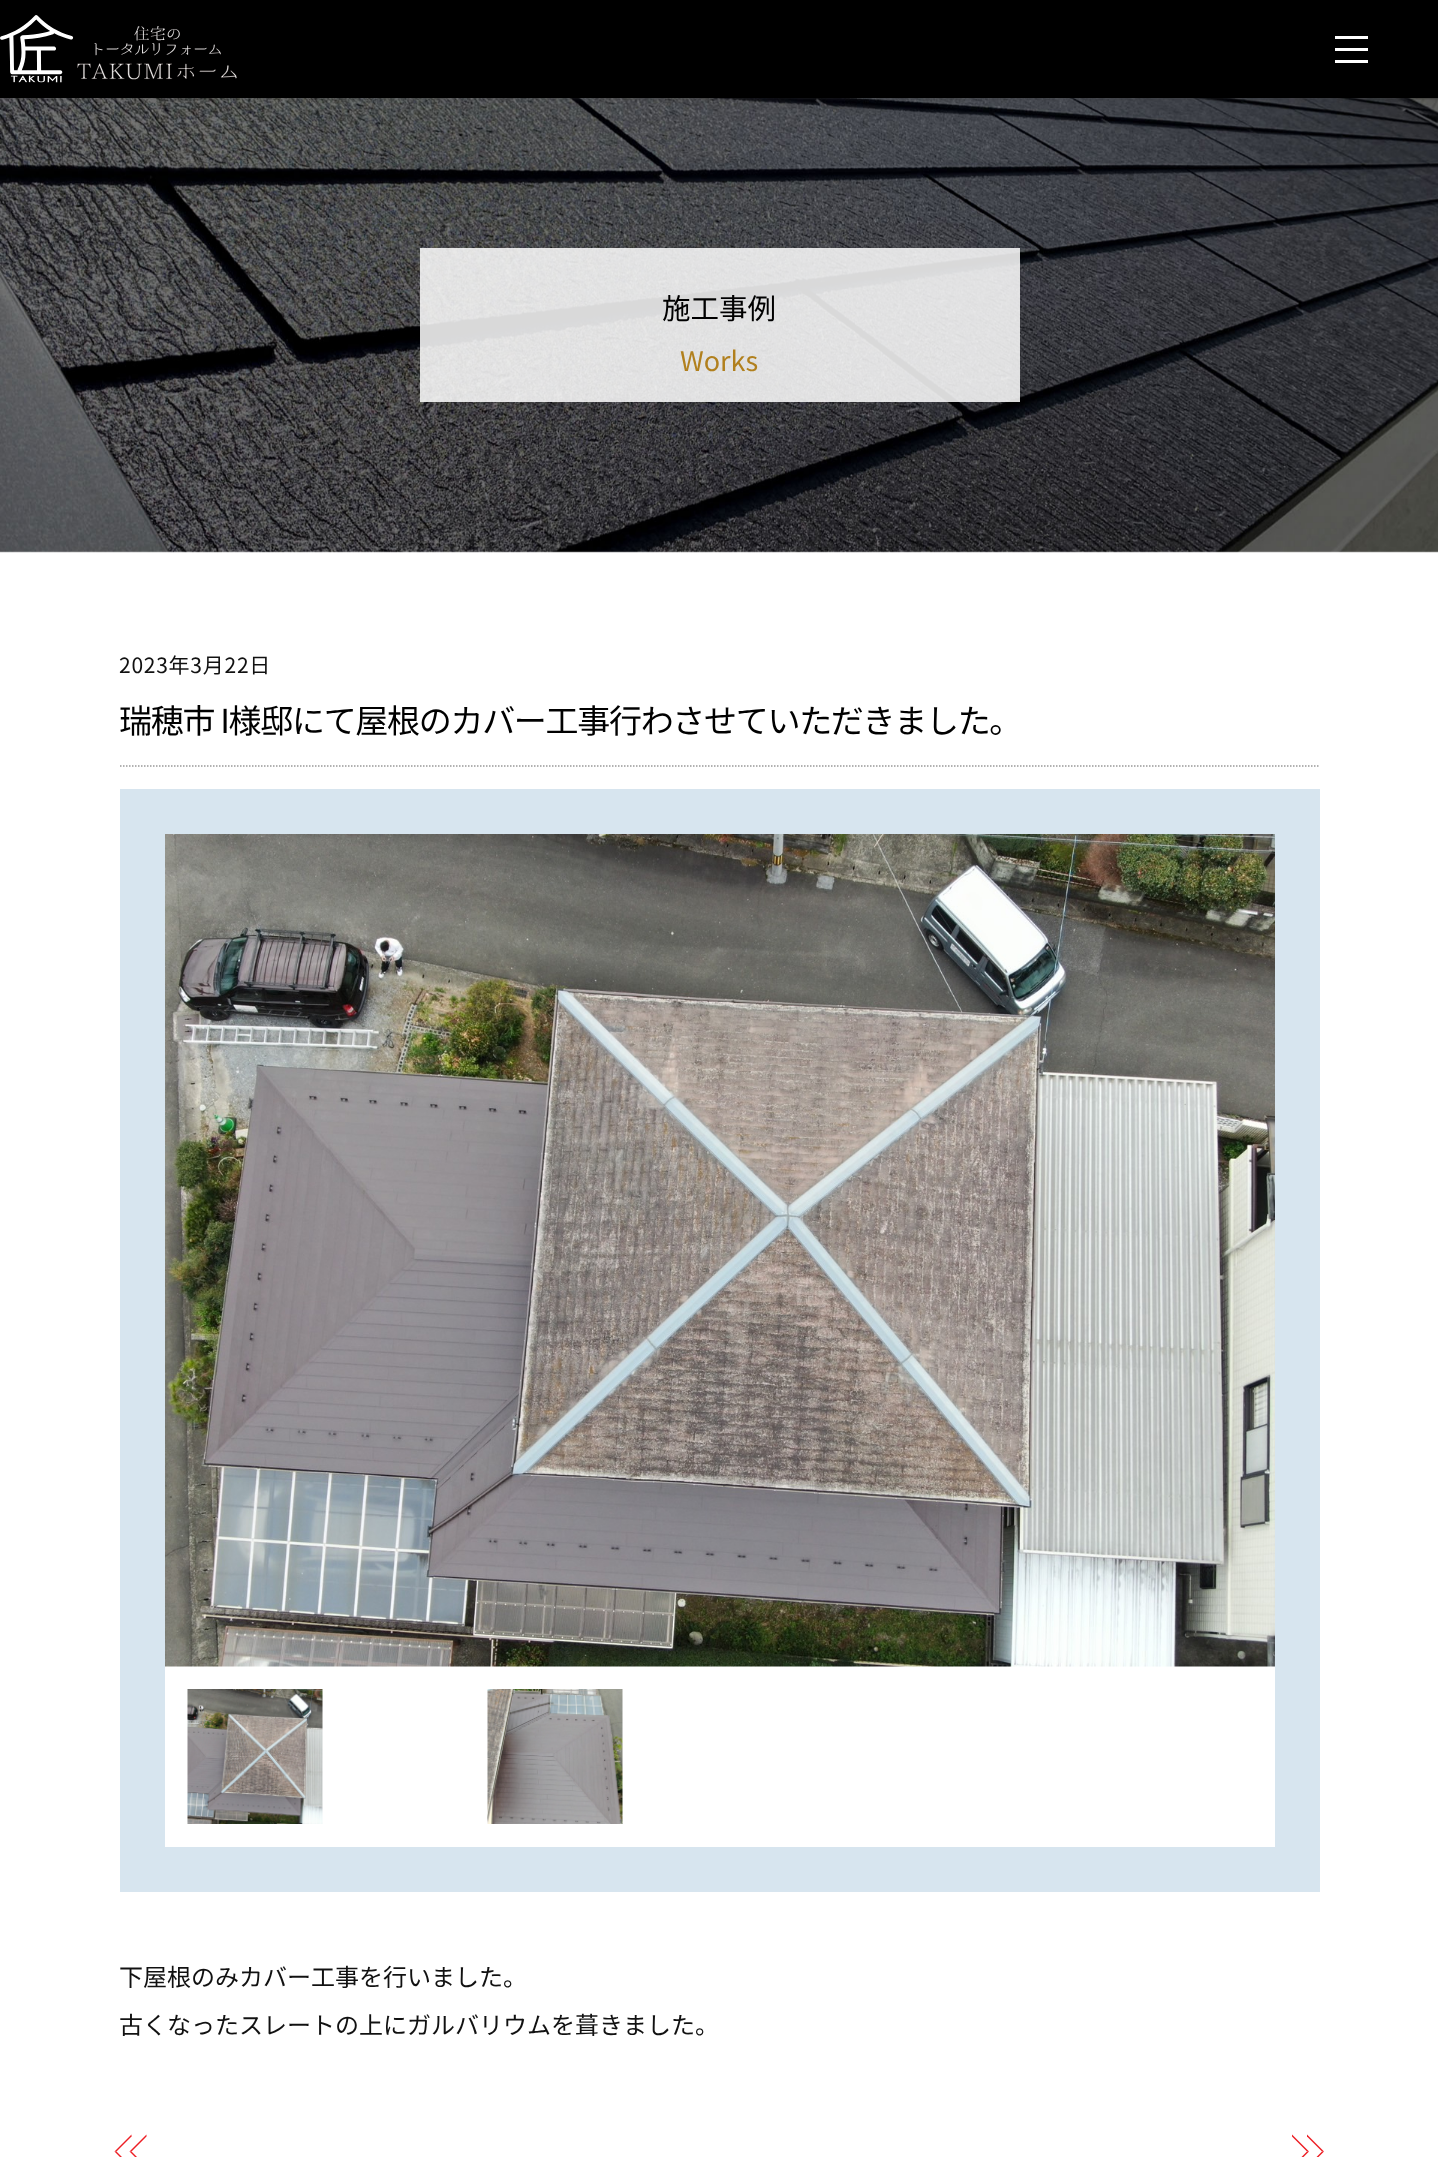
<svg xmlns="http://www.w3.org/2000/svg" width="1438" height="2157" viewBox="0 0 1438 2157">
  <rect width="100%" height="100%" fill="#fff"/>
  <image x="0" y="98" width="1438" height="455" href="img/2.png"/>
  <path d="M-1 -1h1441v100H-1z" fill="#4242424d" filter="blur(1.5px)"/>
  <path d="M0 0h1438v98H0z" fill="#000"/>
  <image x="0" y="15" width="237" height="68" href="img/1.png"/>
  <path d="M1335 60h33v3H1335z" fill="#fff"/>
  <path d="M1335 36h33v3H1335z" fill="#fff"/>
  <path d="M1335 48h33v3H1335z" fill="#fff"/>
  <path d="M420 248h600v154H420z" fill="#ffffffd9"/>
  <path d="M120 766H1320" fill="none" stroke="#999" stroke-width="1.5" stroke-dasharray="1.5 1.5"/>
  <path d="M120 789h1200v1103H120z" fill="#d7e5ef"/>
  <path d="M165 1666h1110v181H165z" fill="#fff"/>
  <image x="165" y="834" width="1110" height="833" href="img/3.png"/>
  <image x="187" y="1689" width="136" height="135" href="img/4.png"/>
  <image x="487" y="1689" width="136" height="135" href="img/5.png"/>
  <path d="M114.5 2151.5L131.5 2134.5V2136.5L116.5 2151.5Z" fill="#ed1e24"/>
  <path d="M131.5 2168.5L114.5 2151.5H116.5L131.5 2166.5ZM129.5 2151.5L146.5 2134.5V2136.5L131.5 2151.5Z" fill="#ed1e24"/>
  <path d="M146.5 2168.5L129.5 2151.5H131.5L146.5 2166.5Z" fill="#ed1e24"/>
  <path d="M1307 2134.5L1324 2151.5H1322L1307 2136.5Z" fill="#ed1e24"/>
  <path d="M1324 2151.5L1307 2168.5V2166.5L1322 2151.5ZM1292 2134.5L1309 2151.5H1307L1292 2136.5Z" fill="#ed1e24"/>
  <path d="M1309 2151.5L1292 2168.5V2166.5L1307 2151.5Z" fill="#ed1e24"/>
  <text x="662" y="319" font-family="Noto Sans JP" font-size="28.5" fill="#000">施工事例</text>
  <text x="680" y="371" font-family="Noto Sans JP" font-size="27" fill="#b1801e">Works</text>
  <text x="119" y="673" font-family="Noto Sans JP" font-size="21" letter-spacing="0.75" fill="#111">2023年3月22日</text>
  <text x="119" y="733" font-family="Noto Sans JP" font-size="33" letter-spacing="-1.3" fill="#000">瑞穂市 I様邸にて屋根のカバー工事行わさせていただきました。</text>
  <g font-family="Noto Sans JP" font-size="24" fill="#111">
    <text x="119" y="1986">下屋根のみカバー工事を行いました。</text>
    <text x="119" y="2034">古くなったスレートの上にガルバリウムを葺きました。</text>
  </g>
</svg>
